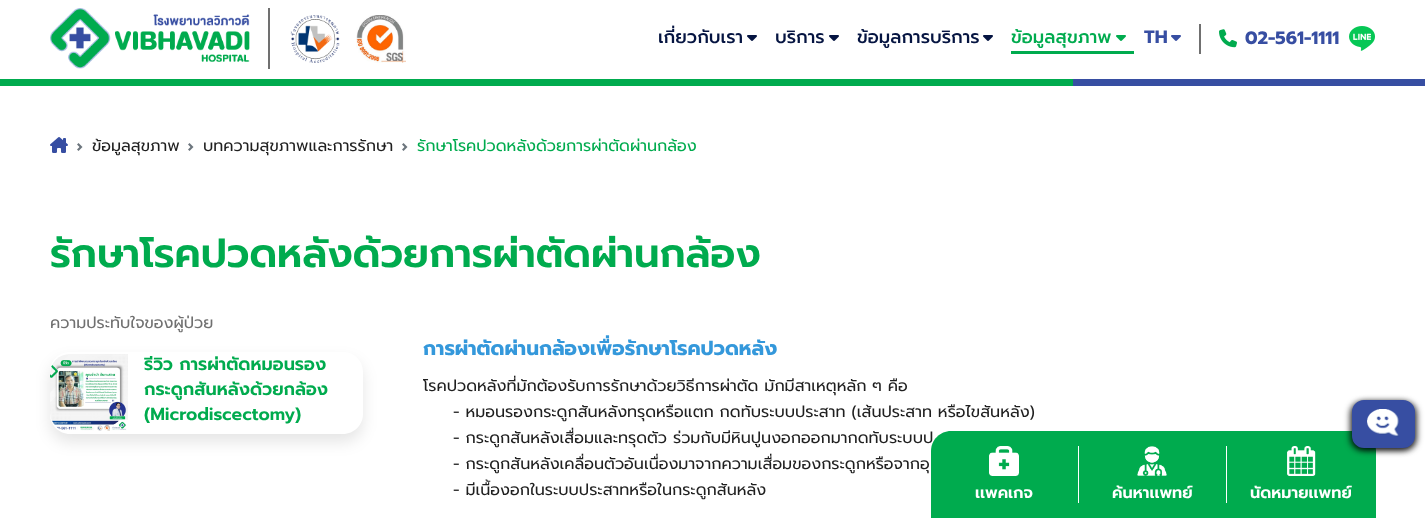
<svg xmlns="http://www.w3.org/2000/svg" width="1425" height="518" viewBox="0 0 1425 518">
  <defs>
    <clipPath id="clip1"><path d="M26 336H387V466H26ZM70 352H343C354 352 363 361 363 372V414C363 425 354 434 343 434H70C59 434 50 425 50 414V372C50 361 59 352 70 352Z" clip-rule="evenodd"/></clipPath>
    <clipPath id="clip2"><path d="M144 352h219v74H144z"/></clipPath>
  </defs>
  <rect width="100%" height="100%" fill="#fff"/>
  <image x="50" y="8" width="200" height="61" href="img/1.png"/>
  <path d="M268 8h2v61H268z" fill="#707070"/>
  <image x="290" y="15" width="50" height="48" href="img/2.png"/>
  <image x="356" y="15" width="50" height="48" href="img/3.png"/>
  <image x="747" y="35" width="10" height="6" href="img/4.png"/>
  <image x="829" y="35" width="10" height="6" href="img/4.png"/>
  <image x="983" y="35" width="10" height="6" href="img/4.png"/>
  <path d="M1011 51h123v3H1011z" fill="#00ab4e"/>
  <image x="1116" y="35" width="10" height="6" href="img/5.png"/>
  <image x="1171" y="35" width="10" height="6" href="img/6.png"/>
  <path d="M1199 24h2v30H1199z" fill="#707070"/>
  <image x="1219" y="29" width="18" height="19" href="img/7.png"/>
  <image x="1349" y="26" width="26" height="25" href="img/8.png"/>
  <path d="M0 79h1073v7H0z" fill="#00ab4e"/>
  <path d="M1073 79h352v7H1073z" fill="#374ea2"/>
  <image x="50" y="137" width="18" height="16" href="img/9.png"/>
  <image x="77" y="143" width="6" height="8" href="img/10.png"/>
  <image x="188" y="143" width="6" height="8" href="img/10.png"/>
  <image x="402" y="143" width="6" height="8" href="img/10.png"/>
  <g clip-path="url(#clip1)">
    <rect x="50" y="360" width="313" height="82" rx="20" fill="#0000001a" filter="blur(7.5px)"/>
  </g>
  <image x="50" y="354" width="78" height="77" href="img/11.png"/>
  <g font-family="Prompt" font-size="18" font-weight="500" fill="#051441">
    <text x="658" y="43">เกี่ยวกับเรา</text>
    <text x="775" y="43">บริการ</text>
    <text x="857" y="43">ข้อมูลการบริการ</text>
  </g>
  <text x="1011" y="43" font-family="Prompt" font-size="18" font-weight="500" fill="#00ab4e">ข้อมูลสุขภาพ</text>
  <g font-family="Prompt" font-size="18" font-weight="bold" fill="#374ea2">
    <text x="1144" y="43">TH</text>
    <text x="1245" y="44">02-561-1111</text>
  </g>
  <g font-family="Prompt" font-size="16" fill="#1f1f1f">
    <text x="92" y="151">ข้อมูลสุขภาพ</text>
    <text x="203" y="151">บทความสุขภาพและการรักษา</text>
  </g>
  <text x="417" y="151" font-family="Prompt" font-size="16" fill="#00ab4e">รักษาโรคปวดหลังด้วยการผ่าตัดผ่านกล้อง</text>
  <text x="50" y="267" font-family="Prompt" font-size="40" font-weight="600" fill="#00ab4e">รักษาโรคปวดหลังด้วยการผ่าตัดผ่านกล้อง</text>
  <text x="50" y="328" font-family="Prompt" font-size="16" fill="#707070">ความประทับใจของผู้ป่วย</text>
  <g clip-path="url(#clip2)">
    <text x="144" y="370" font-family="Prompt" font-size="17.6" font-weight="600" fill="#00ab4e">รีวิว การผ่าตัดหมอนรอง</text>
  </g>
  <g font-family="Prompt" font-size="17.6" font-weight="600" fill="#00ab4e">
    <text x="144" y="395">กระดูกสันหลังด้วยกล้อง</text>
    <text x="144" y="420">(Microdiscectomy)</text>
  </g>
  <text x="423" y="355" font-family="Prompt" font-size="20" font-weight="bold" fill="#3498db">การผ่าตัดผ่านกล้องเพื่อรักษาโรคปวดหลัง</text>
  <g font-family="Prompt" font-size="16" fill="#1f1f1f">
    <text x="423" y="391">โรคปวดหลังที่มักต้องรับการรักษาด้วยวิธีการผ่าตัด มักมีสาเหตุหลัก ๆ คือ</text>
    <text x="453" y="417">- หมอนรองกระดูกสันหลังทรุดหรือแตก กดทับระบบประสาท (เส้นประสาท หรือไขสันหลัง)</text>
    <text x="453" y="443">- กระดูกสันหลังเสื่อมและทรุดตัว ร่วมกับมีหินปูนงอกออกมากดทับระบบป</text>
    <text x="453" y="469">- กระดูกสันหลังเคลื่อนตัวอันเนื่องมาจากความเสื่อมของกระดูกหรือจากอุ</text>
    <text x="453" y="495">- มีเนื้องอกในระบบประสาทหรือในกระดูกสันหลัง</text>
  </g>
  <path d="M951 431H1356C1367 431 1376 440 1376 451V518H931V451C931 440 940 431 951 431Z" fill="#00ab4e"/>
  <rect x="1354" y="402" width="63" height="48" rx="12" fill="#000000b3" filter="blur(3px)"/>
  <rect x="1350" y="402" width="63" height="48" rx="12" fill="#000000b3" filter="blur(3px)"/>
  <image x="1352" y="400" width="63" height="48" href="img/12.png"/>
  <path d="M1078 446h1v57H1078z" fill="#fff"/>
  <image x="989" y="446" width="30" height="30" href="img/13.png"/>
  <text x="975" y="498" font-family="Prompt" font-size="16" font-weight="600" fill="#fff">เเพคเกจ</text>
  <path d="M1226 446h1v57H1226z" fill="#fff"/>
  <image x="1137" y="446" width="30" height="30" href="img/14.png"/>
  <text x="1112" y="498" font-family="Prompt" font-size="16" font-weight="600" fill="#fff">ค้นหาเเพทย์</text>
  <image x="1287" y="446" width="29" height="30" href="img/15.png"/>
  <text x="1250" y="498" font-family="Prompt" font-size="16" font-weight="600" fill="#fff">นัดหมายเเพทย์</text>
</svg>
